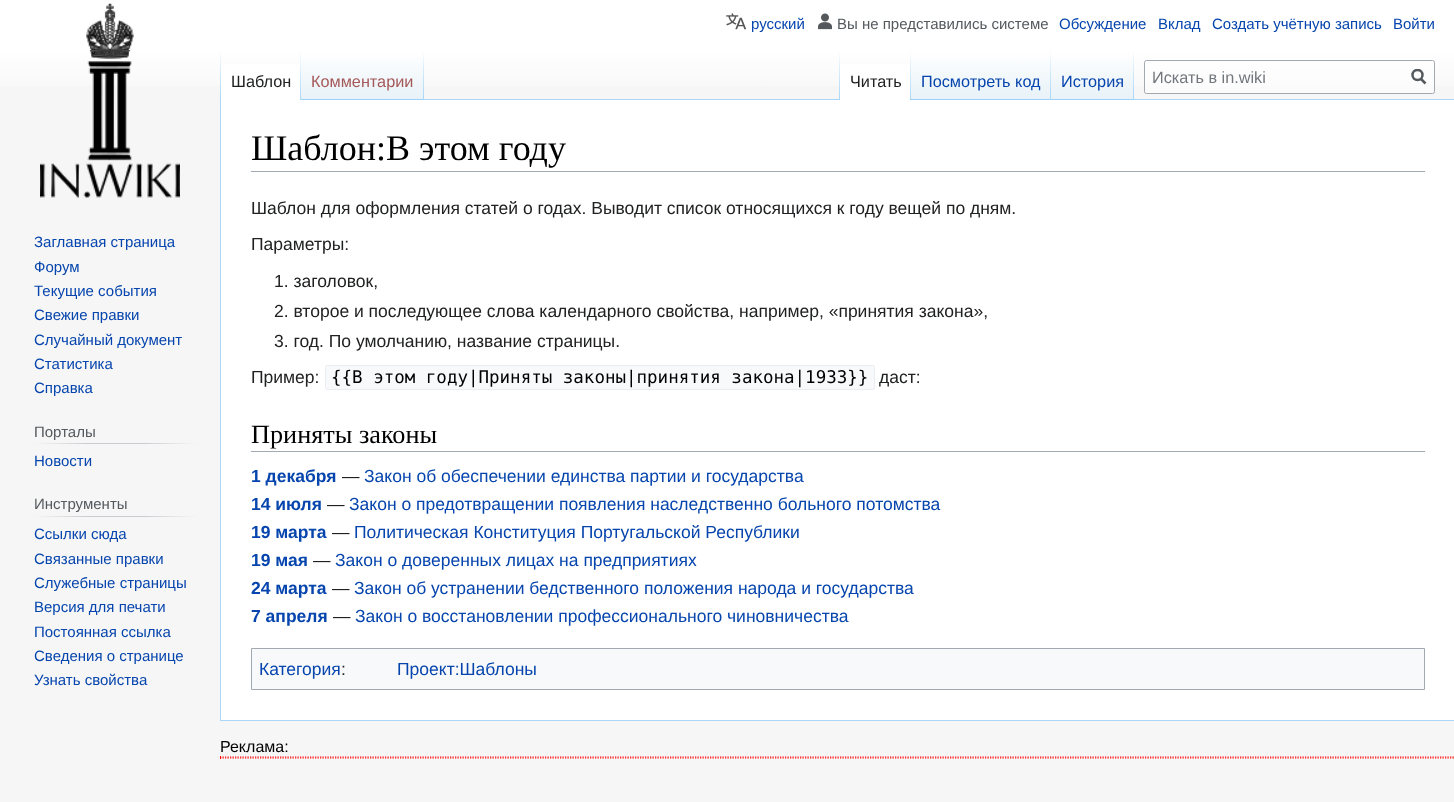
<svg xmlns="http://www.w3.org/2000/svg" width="1454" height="802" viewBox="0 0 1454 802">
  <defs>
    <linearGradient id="g1" gradientUnits="userSpaceOnUse" x1="728" y1="0" x2="728" y2="100"><stop offset="0.5" stop-color="#fff"/><stop offset="1" stop-color="#f6f6f6"/></linearGradient>
    <linearGradient id="g2" gradientUnits="userSpaceOnUse" x1="221" y1="50" x2="221" y2="100"><stop offset="0" stop-color="#a7d7f9" stop-opacity="0"/><stop offset="1" stop-color="#a7d7f9"/></linearGradient>
    <linearGradient id="g3" gradientUnits="userSpaceOnUse" x1="301" y1="50" x2="301" y2="100"><stop offset="0" stop-color="#fff"/><stop offset="1" stop-color="#a7d7f9"/></linearGradient>
    <linearGradient id="g4" gradientUnits="userSpaceOnUse" x1="363" y1="100" x2="363" y2="50"><stop offset="0" stop-color="#77c1f6"/><stop offset="0.03" stop-color="#e8f2f8"/><stop offset="1" stop-color="#fff"/></linearGradient>
    <linearGradient id="g5" gradientUnits="userSpaceOnUse" x1="423" y1="50" x2="423" y2="100"><stop offset="0" stop-color="#a7d7f9" stop-opacity="0"/><stop offset="1" stop-color="#a7d7f9"/></linearGradient>
    <linearGradient id="g6" gradientUnits="userSpaceOnUse" x1="839" y1="50" x2="839" y2="100"><stop offset="0" stop-color="#a7d7f9" stop-opacity="0"/><stop offset="1" stop-color="#a7d7f9"/></linearGradient>
    <linearGradient id="g7" gradientUnits="userSpaceOnUse" x1="911" y1="50" x2="911" y2="100"><stop offset="0" stop-color="#fff"/><stop offset="1" stop-color="#a7d7f9"/></linearGradient>
    <linearGradient id="g8" gradientUnits="userSpaceOnUse" x1="981" y1="100" x2="981" y2="50"><stop offset="0" stop-color="#77c1f6"/><stop offset="0.03" stop-color="#e8f2f8"/><stop offset="1" stop-color="#fff"/></linearGradient>
    <linearGradient id="g9" gradientUnits="userSpaceOnUse" x1="1051" y1="50" x2="1051" y2="100"><stop offset="0" stop-color="#a7d7f9" stop-opacity="0"/><stop offset="1" stop-color="#a7d7f9"/></linearGradient>
    <linearGradient id="g10" gradientUnits="userSpaceOnUse" x1="1093" y1="100" x2="1093" y2="50"><stop offset="0" stop-color="#77c1f6"/><stop offset="0.03" stop-color="#e8f2f8"/><stop offset="1" stop-color="#fff"/></linearGradient>
    <linearGradient id="g11" gradientUnits="userSpaceOnUse" x1="1133" y1="50" x2="1133" y2="100"><stop offset="0" stop-color="#a7d7f9" stop-opacity="0"/><stop offset="1" stop-color="#a7d7f9"/></linearGradient>
    <clipPath id="clip1"><path d="M1411 69h15v16H1411z"/></clipPath>
    <linearGradient id="g12" gradientUnits="userSpaceOnUse" x1="34" y1="443" x2="198" y2="443"><stop offset="0" stop-color="#f6f6f6"/><stop offset="0.33" stop-color="#c8ccd1"/><stop offset="0.66" stop-color="#c8ccd1"/><stop offset="1" stop-color="#f6f6f6"/></linearGradient>
    <linearGradient id="g13" gradientUnits="userSpaceOnUse" x1="34" y1="517" x2="198" y2="517"><stop offset="0" stop-color="#f6f6f6"/><stop offset="0.33" stop-color="#c8ccd1"/><stop offset="0.66" stop-color="#c8ccd1"/><stop offset="1" stop-color="#f6f6f6"/></linearGradient>
  </defs>
  <rect width="100%" height="100%" fill="#f6f6f6"/>
  <path d="M0 0h1454v86H0z" fill="url(#g1)"/>
  <image x="726" y="13" width="20" height="17" href="img/1.png"/>
  <image x="818" y="13" width="14" height="17" href="img/2.png"/>
  <path d="M220 720h1234v1H220z" fill="#a7d7f9"/>
  <path d="M220 99h1v622H220z" fill="#a7d7f9"/>
  <path d="M220 50h1v50H220z" fill="url(#g2)"/>
  <path d="M221 64h79v36H221z" fill="#fff"/>
  <path d="M300 50h1v50H300z" fill="url(#g3)"/>
  <path d="M301 57h123v43H301z" fill="url(#g4)"/>
  <path d="M423 50h1v50H423z" fill="url(#g5)"/>
  <path d="M424 99h1030v1H424z" fill="#a7d7f9"/>
  <path d="M839 50h1v50H839z" fill="url(#g6)"/>
  <path d="M840 64h70v36H840z" fill="#fff"/>
  <path d="M910 50h1v50H910z" fill="url(#g7)"/>
  <path d="M911 57h140v43H911z" fill="url(#g8)"/>
  <path d="M1050 50h1v50H1050z" fill="url(#g9)"/>
  <path d="M1051 57h83v43H1051z" fill="url(#g10)"/>
  <path d="M1133 50h1v50H1133z" fill="url(#g11)"/>
  <rect x="1144.5" y="60.5" width="290" height="33" rx="2" fill="#ffffff80" stroke="#a2a9b1"/>
  <path d="M1425.5 83.5L1420.5 78.5" fill="none" stroke="#54595d" stroke-width="2.5"/>
  <g clip-path="url(#clip1)">
    <circle cx="1417.5" cy="75" r="5" fill="none" stroke="#54595d" stroke-width="2.5"/>
  </g>
  <image x="40" y="3" width="140" height="195" href="img/3.png"/>
  <path d="M34 443h164v1H34z" fill="url(#g12)"/>
  <path d="M34 516h164v1H34z" fill="url(#g13)"/>
  <path d="M221 100h1233v620H221z" fill="#fff"/>
  <path d="M251 171h1174v1H251z" fill="#a2a9b1"/>
  <rect x="325.5" y="365.5" width="549" height="24" rx="2" fill="#f8f9fa" stroke="#eaecf0"/>
  <path d="M251 451h1174v1H251z" fill="#a2a9b1"/>
  <path d="M251.5 648.5h1173v41H251.5z" fill="#f8f9fa" stroke="#a2a9b1"/>
  <path d="M220 757H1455" fill="none" stroke="#f00" stroke-width="1.2" stroke-dasharray="1.25 1.25"/>
  <path d="M220 758H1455" fill="none" stroke="#f00" stroke-width="1.2" stroke-dasharray="1.25 1.25"/>
  <path d="M220 756h1v3H220z" fill="#f00"/>
  <text x="751" y="29" font-family="Liberation Sans" font-size="15" fill="#0645ad">русский</text>
  <text x="837" y="29" font-family="Liberation Sans" font-size="15" fill="#54595d">Вы не представились системе</text>
  <g font-family="Liberation Sans" font-size="15" fill="#0645ad">
    <text x="1059" y="29">Обсуждение</text>
    <text x="1158" y="29">Вклад</text>
    <text x="1212" y="29">Создать учётную запись</text>
    <text x="1393" y="29">Войти</text>
  </g>
  <text x="231" y="87" font-family="Liberation Sans" font-size="16.25" fill="#202122">Шаблон</text>
  <text x="311" y="87" font-family="Liberation Sans" font-size="16.25" fill="#a55858">Комментарии</text>
  <text x="850" y="87" font-family="Liberation Sans" font-size="16.25" fill="#202122">Читать</text>
  <g font-family="Liberation Sans" font-size="16.25" fill="#0645ad">
    <text x="921" y="87">Посмотреть код</text>
    <text x="1061" y="87">История</text>
  </g>
  <text x="1152" y="83" font-family="Liberation Sans" font-size="16.25" fill="#72777d">Искать в in.wiki</text>
  <g font-family="Liberation Sans" font-size="15" fill="#0645ad">
    <text x="34" y="247">Заглавная страница</text>
    <text x="34" y="272">Форум</text>
    <text x="34" y="296">Текущие события</text>
    <text x="34" y="320">Свежие правки</text>
    <text x="34" y="345">Случайный документ</text>
    <text x="34" y="369">Статистика</text>
    <text x="34" y="393">Справка</text>
  </g>
  <text x="34" y="437" font-family="Liberation Sans" font-size="15" fill="#54595d">Порталы</text>
  <text x="34" y="466" font-family="Liberation Sans" font-size="15" fill="#0645ad">Новости</text>
  <text x="34" y="509" font-family="Liberation Sans" font-size="15" fill="#54595d">Инструменты</text>
  <g font-family="Liberation Sans" font-size="15" fill="#0645ad">
    <text x="34" y="539">Ссылки сюда</text>
    <text x="34" y="564">Связанные правки</text>
    <text x="34" y="588">Служебные страницы</text>
    <text x="34" y="612">Версия для печати</text>
    <text x="34" y="637">Постоянная ссылка</text>
    <text x="34" y="661">Сведения о странице</text>
    <text x="34" y="685">Узнать свойства</text>
  </g>
  <text x="251" y="160" font-family="Liberation Serif" font-size="36" fill="#000">Шаблон:В этом году</text>
  <g font-family="Liberation Sans" font-size="17.5" fill="#202122">
    <text x="251" y="214">Шаблон для оформления статей о годах. Выводит список относящихся к году вещей по дням.</text>
    <text x="251" y="250">Параметры:</text>
    <text x="274" y="287">1. заголовок,</text>
    <text x="274" y="317">2. второе и последующее слова календарного свойства, например, «принятия закона»,</text>
    <text x="274" y="347">3. год. По умолчанию, название страницы.</text>
    <text x="251" y="383">Пример:</text>
  </g>
  <text x="331" y="383" font-family="DejaVu Sans Mono" font-size="17.5" fill="#000">{{В этом году|Приняты законы|принятия закона|1933}}</text>
  <text x="879" y="383" font-family="Liberation Sans" font-size="17.5" fill="#202122">даст:</text>
  <text x="251" y="443" font-family="Liberation Serif" font-size="26.25" fill="#000">Приняты законы</text>
  <text x="251" y="482" font-family="Liberation Sans" font-size="17.5" font-weight="bold" fill="#0645ad">1 декабря</text>
  <text x="342" y="482" font-family="Liberation Sans" font-size="17.5" fill="#202122">—</text>
  <text x="364" y="482" font-family="Liberation Sans" font-size="17.5" fill="#0645ad">Закон об обеспечении единства партии и государства</text>
  <text x="251" y="510" font-family="Liberation Sans" font-size="17.5" font-weight="bold" fill="#0645ad">14 июля</text>
  <text x="327" y="510" font-family="Liberation Sans" font-size="17.5" fill="#202122">—</text>
  <text x="349" y="510" font-family="Liberation Sans" font-size="17.5" fill="#0645ad">Закон о предотвращении появления наследственно больного потомства</text>
  <text x="251" y="538" font-family="Liberation Sans" font-size="17.5" font-weight="bold" fill="#0645ad">19 марта</text>
  <text x="332" y="538" font-family="Liberation Sans" font-size="17.5" fill="#202122">—</text>
  <text x="354" y="538" font-family="Liberation Sans" font-size="17.5" fill="#0645ad">Политическая Конституция Португальской Республики</text>
  <text x="251" y="566" font-family="Liberation Sans" font-size="17.5" font-weight="bold" fill="#0645ad">19 мая</text>
  <text x="313" y="566" font-family="Liberation Sans" font-size="17.5" fill="#202122">—</text>
  <text x="335" y="566" font-family="Liberation Sans" font-size="17.5" fill="#0645ad">Закон о доверенных лицах на предприятиях</text>
  <text x="251" y="594" font-family="Liberation Sans" font-size="17.5" font-weight="bold" fill="#0645ad">24 марта</text>
  <text x="332" y="594" font-family="Liberation Sans" font-size="17.5" fill="#202122">—</text>
  <text x="354" y="594" font-family="Liberation Sans" font-size="17.5" fill="#0645ad">Закон об устранении бедственного положения народа и государства</text>
  <text x="251" y="622" font-family="Liberation Sans" font-size="17.5" font-weight="bold" fill="#0645ad">7 апреля</text>
  <text x="333" y="622" font-family="Liberation Sans" font-size="17.5" fill="#202122">—</text>
  <g font-family="Liberation Sans" font-size="17.5" fill="#0645ad">
    <text x="355" y="622">Закон о восстановлении профессионального чиновничества</text>
    <text x="259" y="675">Категория</text>
  </g>
  <text x="341" y="675" font-family="Liberation Sans" font-size="17.5" fill="#202122">:</text>
  <text x="397" y="675" font-family="Liberation Sans" font-size="17.5" fill="#0645ad">Проект:Шаблоны</text>
  <text x="220" y="752" font-family="Liberation Sans" font-size="16" fill="#000">Реклама:</text>
</svg>
